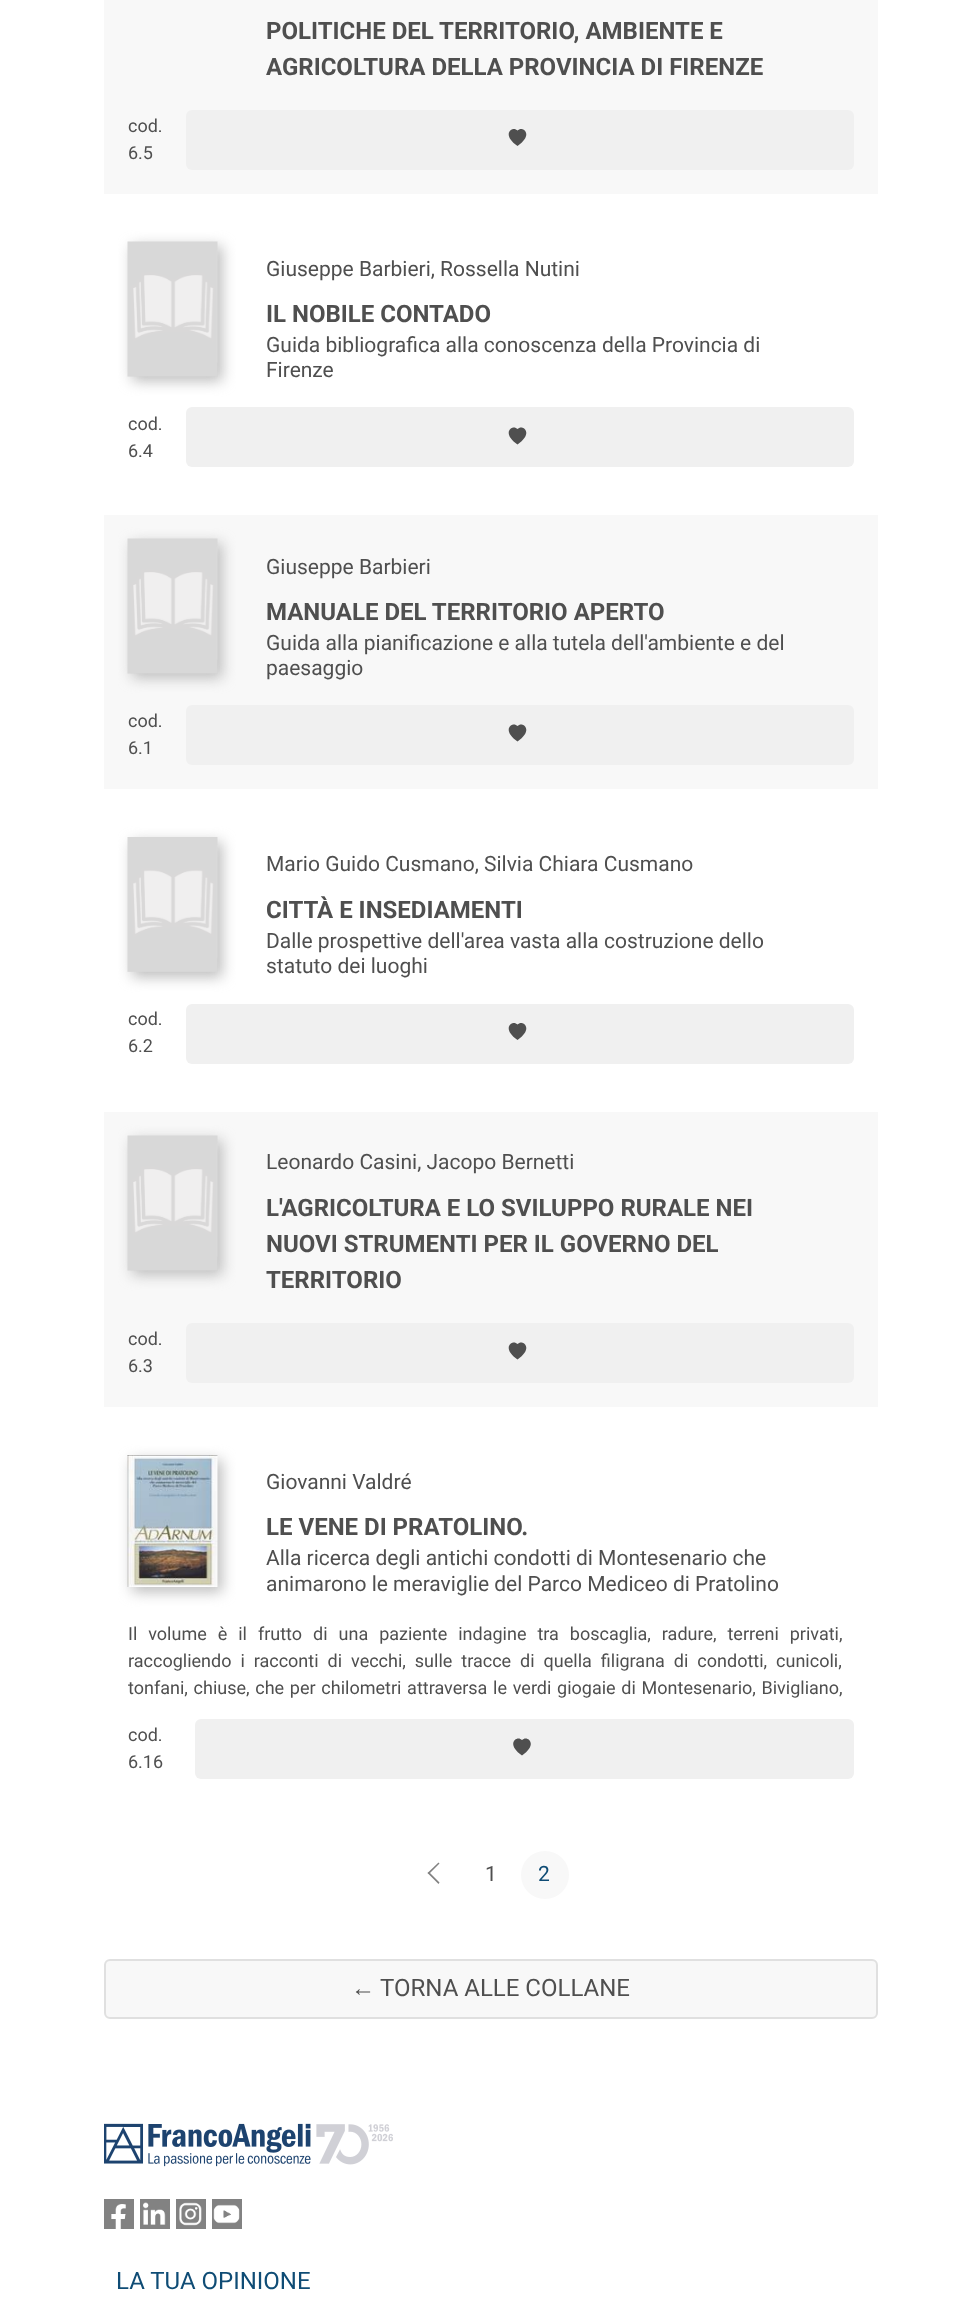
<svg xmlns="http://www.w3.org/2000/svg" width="980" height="2308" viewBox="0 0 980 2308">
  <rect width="100%" height="100%" fill="#fff"/>
  <path d="M104 0h774v194H104z" fill="#f8f8f8"/>
  <rect x="186" y="110" width="668" height="60" rx="6" fill="#f0f0f0"/>
  <path d="M517.5 130.5C522.5 125 534.5 134.5 517.5 146C500.5 134.5 512.5 125 517.5 130.5Z" fill="#4f4f4f"/>
  <path d="M132 246h90v135H132z" fill="#bdbdbd" filter="blur(7px)"/>
  <image x="127" y="241" width="91" height="136" href="img/1.png"/>
  <rect x="186" y="407" width="668" height="60" rx="6" fill="#f0f0f0"/>
  <path d="M517.5 429C522.5 423.5 534.5 433 517.5 444.5C500.5 433 512.5 423.5 517.5 429Z" fill="#4f4f4f"/>
  <path d="M104 515h774v274H104z" fill="#f8f8f8"/>
  <path d="M132 543h90v135H132z" fill="#bdbdbd" filter="blur(7px)"/>
  <image x="127" y="538" width="91" height="136" href="img/2.png"/>
  <rect x="186" y="705" width="668" height="60" rx="6" fill="#f0f0f0"/>
  <path d="M517.5 726C522.5 720.5 534.5 730 517.5 741.5C500.5 730 512.5 720.5 517.5 726Z" fill="#4f4f4f"/>
  <path d="M132 842h90v135H132z" fill="#bdbdbd" filter="blur(7px)"/>
  <image x="127" y="837" width="91" height="135" href="img/3.png"/>
  <rect x="186" y="1004" width="668" height="60" rx="6" fill="#f0f0f0"/>
  <path d="M517.5 1024.5C522.5 1019 534.5 1028.5 517.5 1040C500.5 1028.5 512.5 1019 517.5 1024.5Z" fill="#4f4f4f"/>
  <path d="M104 1112h774v295H104z" fill="#f8f8f8"/>
  <path d="M132 1140h90v135H132z" fill="#bdbdbd" filter="blur(7px)"/>
  <image x="127" y="1135" width="91" height="136" href="img/2.png"/>
  <rect x="186" y="1323" width="668" height="60" rx="6" fill="#f0f0f0"/>
  <path d="M517.5 1344C522.5 1338.5 534.5 1348 517.5 1359.5C500.5 1348 512.5 1338.5 517.5 1344Z" fill="#4f4f4f"/>
  <path d="M132 1460h90v132H132z" fill="#bdbdbd" filter="blur(7px)"/>
  <image x="127" y="1455" width="91" height="132" href="img/4.png"/>
  <rect x="195" y="1719" width="659" height="60" rx="6" fill="#f0f0f0"/>
  <path d="M522 1740C527 1734.5 539 1744 522 1755.5C505 1744 517 1734.5 522 1740Z" fill="#4f4f4f"/>
  <path d="M429 1872L439.5 1882.5L438.5 1884L427.5 1873Z" fill="#828282"/>
  <path d="M438.5 1862.5L439.5 1863.5L429 1874L427.5 1873Z" fill="#828282"/>
  <circle cx="545" cy="1875" r="24" fill="#f8f8f8"/>
  <rect x="105" y="1960" width="772" height="58" rx="5" fill="#f8f8f8" stroke="#e0e0e0" stroke-width="2"/>
  <image x="104" y="2123" width="289" height="44" href="img/5.png"/>
  <path d="M104 2199h30v30H104z" fill="#828282"/>
  <image x="111" y="2204" width="15" height="25" href="img/6.png"/>
  <path d="M140 2199h30v30H140z" fill="#828282"/>
  <image x="143" y="2202" width="23" height="23" href="img/7.png"/>
  <path d="M176 2199h30v30H176z" fill="#828282"/>
  <image x="179" y="2202" width="23" height="24" href="img/8.png"/>
  <path d="M212 2199h30v30H212z" fill="#828282"/>
  <image x="213" y="2204" width="27" height="20" href="img/9.png"/>
  <g font-family="Roboto" font-size="24" font-weight="bold" fill="#4f4f4f">
    <text x="266" y="39">POLITICHE DEL TERRITORIO, AMBIENTE E</text>
    <text x="266" y="75">AGRICOLTURA DELLA PROVINCIA DI FIRENZE</text>
  </g>
  <g font-family="Roboto" font-size="18" fill="#4f4f4f">
    <text x="128" y="132">cod.</text>
    <text x="128" y="159">6.5</text>
  </g>
  <text x="266" y="276" font-family="Roboto" font-size="21" fill="#4f4f4f">Giuseppe Barbieri, Rossella Nutini</text>
  <text x="266" y="322" font-family="Roboto" font-size="24" font-weight="bold" fill="#4f4f4f">IL NOBILE CONTADO</text>
  <g font-family="Roboto" font-size="21" fill="#4f4f4f">
    <text x="266" y="352">Guida bibliografica alla conoscenza della Provincia di</text>
    <text x="266" y="377">Firenze</text>
  </g>
  <g font-family="Roboto" font-size="18" fill="#4f4f4f">
    <text x="128" y="430">cod.</text>
    <text x="128" y="457">6.4</text>
  </g>
  <text x="266" y="574" font-family="Roboto" font-size="21" fill="#4f4f4f">Giuseppe Barbieri</text>
  <text x="266" y="620" font-family="Roboto" font-size="24" font-weight="bold" fill="#4f4f4f">MANUALE DEL TERRITORIO APERTO</text>
  <g font-family="Roboto" font-size="21" fill="#4f4f4f">
    <text x="266" y="650">Guida alla pianificazione e alla tutela dell'ambiente e del</text>
    <text x="266" y="675">paesaggio</text>
  </g>
  <g font-family="Roboto" font-size="18" fill="#4f4f4f">
    <text x="128" y="727">cod.</text>
    <text x="128" y="754">6.1</text>
  </g>
  <text x="266" y="871" font-family="Roboto" font-size="21" fill="#4f4f4f">Mario Guido Cusmano, Silvia Chiara Cusmano</text>
  <text x="266" y="918" font-family="Roboto" font-size="24" font-weight="bold" fill="#4f4f4f">CITTÀ E INSEDIAMENTI</text>
  <g font-family="Roboto" font-size="21" fill="#4f4f4f">
    <text x="266" y="948">Dalle prospettive dell'area vasta alla costruzione dello</text>
    <text x="266" y="973">statuto dei luoghi</text>
  </g>
  <g font-family="Roboto" font-size="18" fill="#4f4f4f">
    <text x="128" y="1025">cod.</text>
    <text x="128" y="1052">6.2</text>
  </g>
  <text x="266" y="1169" font-family="Roboto" font-size="21" fill="#4f4f4f">Leonardo Casini, Jacopo Bernetti</text>
  <g font-family="Roboto" font-size="24" font-weight="bold" fill="#4f4f4f">
    <text x="266" y="1216">L'AGRICOLTURA E LO SVILUPPO RURALE NEI</text>
    <text x="266" y="1252">NUOVI STRUMENTI PER IL GOVERNO DEL</text>
    <text x="266" y="1288">TERRITORIO</text>
  </g>
  <g font-family="Roboto" font-size="18" fill="#4f4f4f">
    <text x="128" y="1345">cod.</text>
    <text x="128" y="1372">6.3</text>
  </g>
  <text x="266" y="1489" font-family="Roboto" font-size="21" fill="#4f4f4f">Giovanni Valdré</text>
  <text x="266" y="1535" font-family="Roboto" font-size="24" font-weight="bold" fill="#4f4f4f">LE VENE DI PRATOLINO.</text>
  <g font-family="Roboto" font-size="21" fill="#4f4f4f">
    <text x="266" y="1565">Alla ricerca degli antichi condotti di Montesenario che</text>
    <text x="266" y="1591">animarono le meraviglie del Parco Mediceo di Pratolino</text>
  </g>
  <g font-family="Roboto" font-size="18" fill="#4f4f4f">
    <text x="128" y="1640" word-spacing="6.5">Il volume è il frutto di una paziente indagine tra boscaglia, radure, terreni privati,</text>
    <text x="128" y="1667" word-spacing="4.5">raccogliendo i racconti di vecchi, sulle tracce di quella filigrana di condotti, cunicoli,</text>
    <text x="128" y="1694" word-spacing="1.25">tonfani, chiuse, che per chilometri attraversa le verdi giogaie di Montesenario, Bivigliano,</text>
    <text x="128" y="1741">cod.</text>
    <text x="128" y="1768">6.16</text>
  </g>
  <text x="485" y="1881" font-family="Roboto" font-size="21" fill="#4f4f4f">1</text>
  <text x="538" y="1881" font-family="Roboto" font-size="21" fill="#0f4c75">2</text>
  <text x="351" y="1996" font-family="Liberation Sans" font-size="24" fill="#4f4f4f">←</text>
  <text x="380" y="1996" font-family="Roboto" font-size="24" fill="#4f4f4f">TORNA ALLE COLLANE</text>
  <text x="116" y="2289" font-family="Roboto" font-size="24" fill="#0f4c75">LA TUA OPINIONE</text>
</svg>
